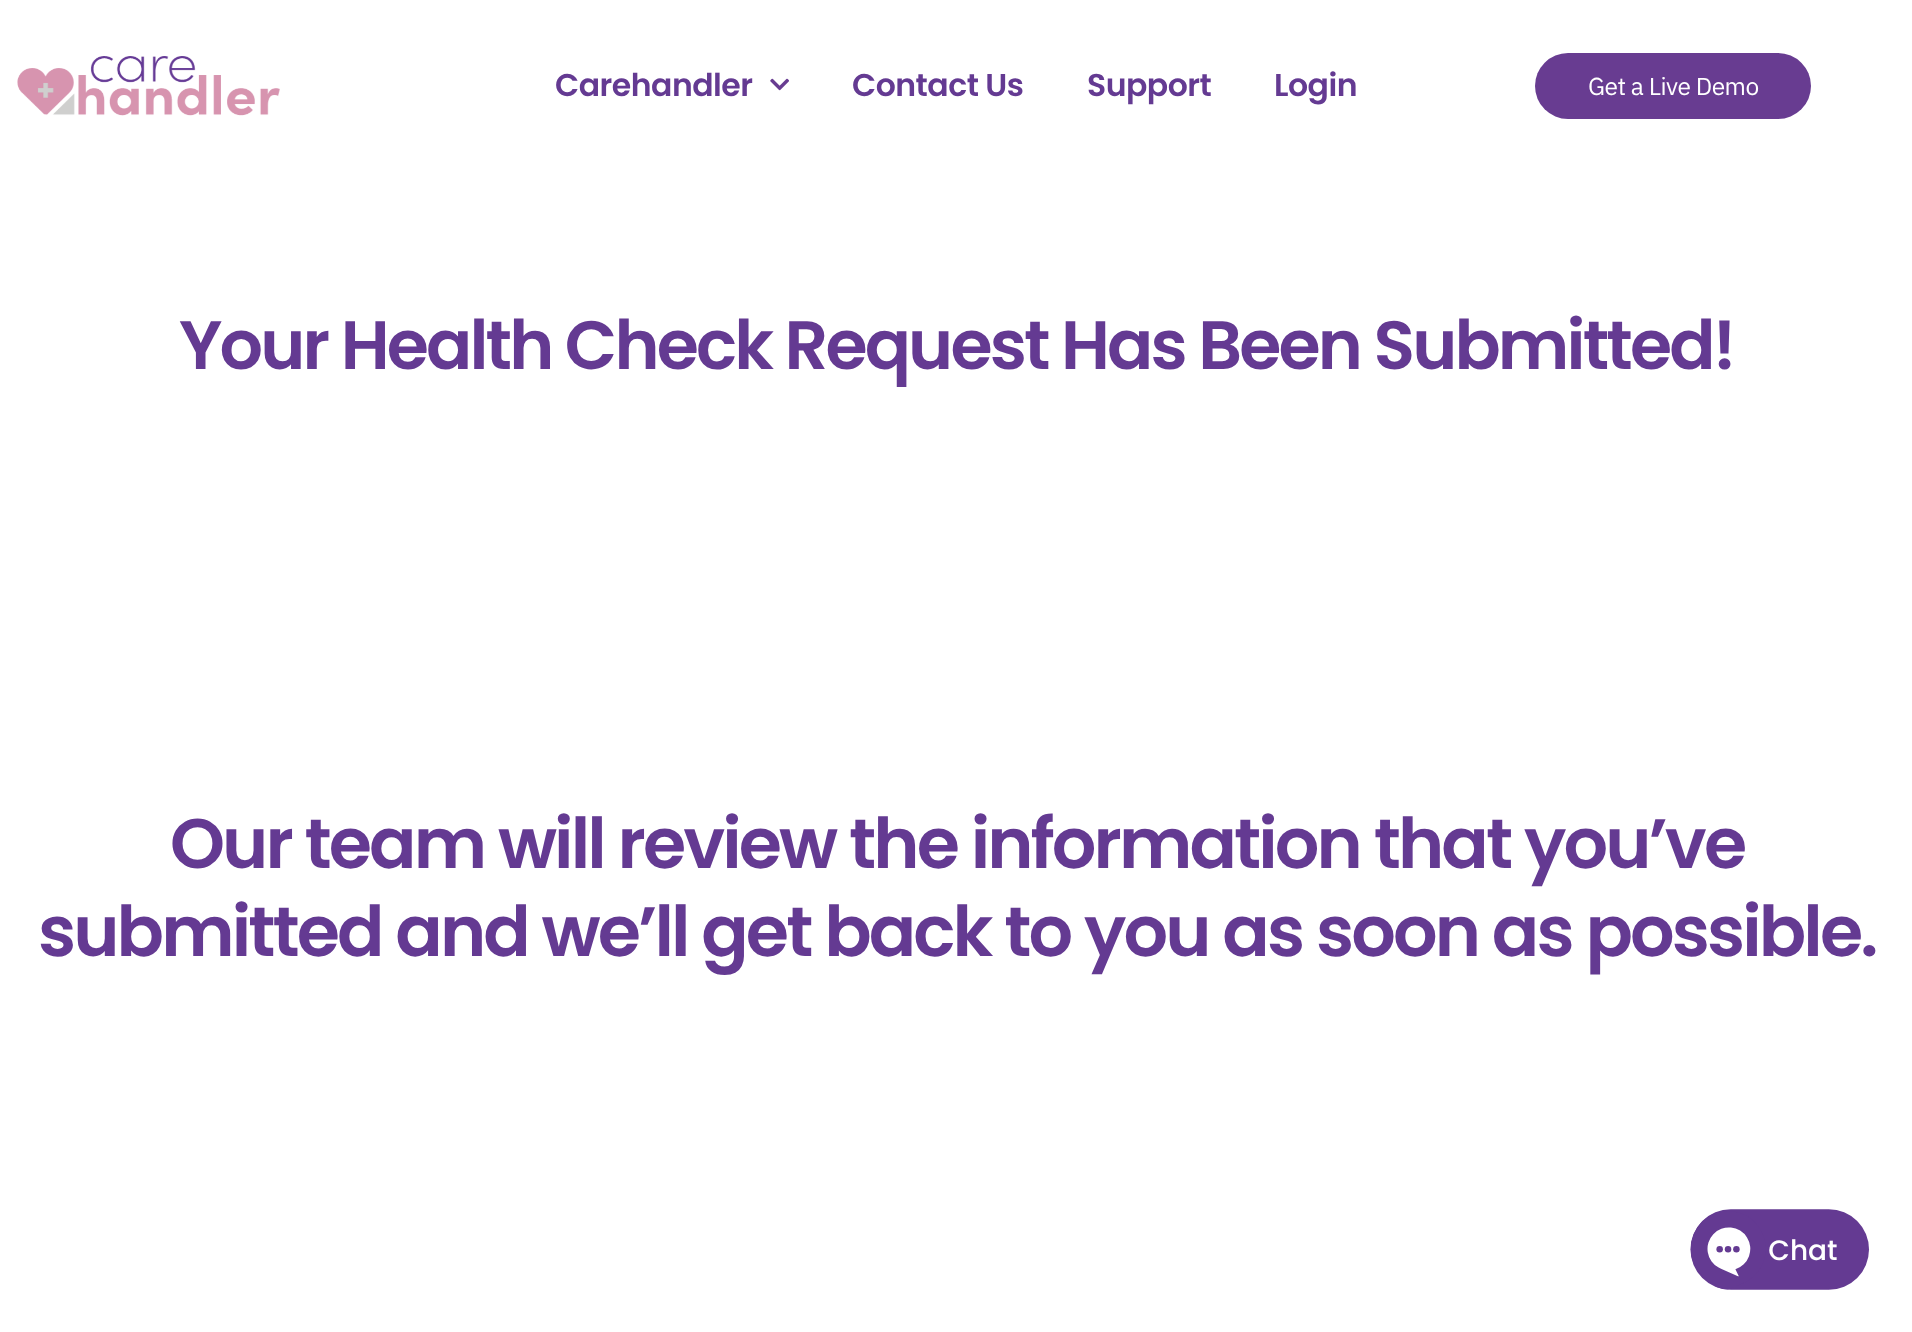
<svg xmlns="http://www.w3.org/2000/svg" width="1912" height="1332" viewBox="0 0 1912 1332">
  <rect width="100%" height="100%" fill="#fff"/>
  <image x="17" y="56" width="263" height="60" href="img/1.png"/>
  <image x="770" y="78" width="19" height="13" href="img/2.png"/>
  <rect x="1535" y="53" width="276" height="66" rx="33" fill="#683c91"/>
  <image x="1690" y="1209" width="180" height="81" href="img/3.png"/>
  <g font-family="Poppins" font-size="31.5" font-weight="600" letter-spacing="-0.5" fill="#643a92">
    <text x="555" y="96">Carehandler</text>
    <text x="852" y="96">Contact Us</text>
    <text x="1087" y="96">Support</text>
    <text x="1274" y="96">Login</text>
  </g>
  <text x="1588" y="95" font-family="IBM Plex Sans" font-size="24.5" letter-spacing="-0.5" fill="#fff">Get a Live Demo</text>
  <text x="179" y="369" font-family="Poppins" font-size="68.25" font-weight="600" letter-spacing="-2.85" fill="#643a92">Your Health Check Request Has Been Submitted!</text>
  <g font-family="Poppins" font-size="70" font-weight="600" letter-spacing="-2.9" fill="#643a92">
    <text x="170" y="868">Our team will review the information that you’ve</text>
    <text x="38" y="956">submitted and we’ll get back to you as soon as possible.</text>
  </g>
</svg>
